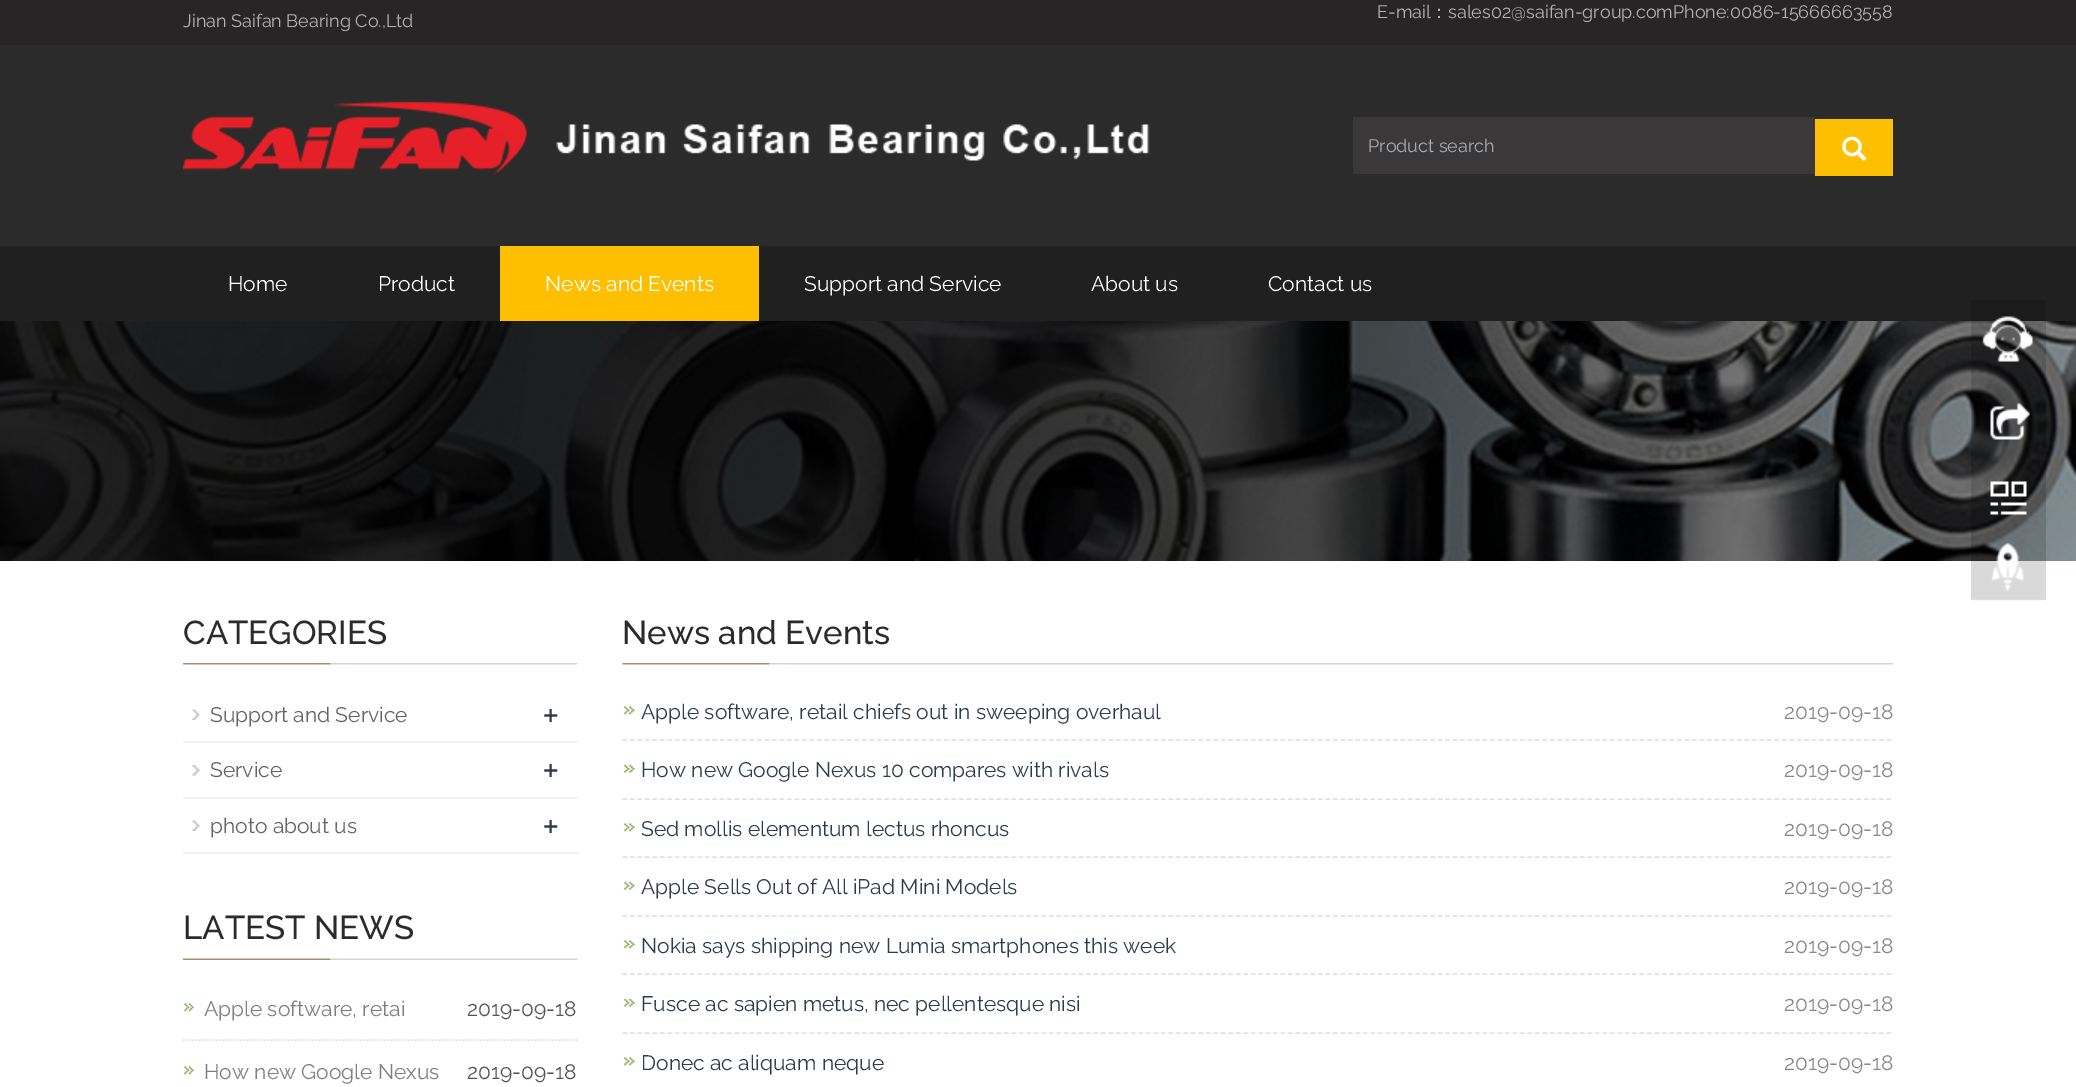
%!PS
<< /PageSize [2076 1087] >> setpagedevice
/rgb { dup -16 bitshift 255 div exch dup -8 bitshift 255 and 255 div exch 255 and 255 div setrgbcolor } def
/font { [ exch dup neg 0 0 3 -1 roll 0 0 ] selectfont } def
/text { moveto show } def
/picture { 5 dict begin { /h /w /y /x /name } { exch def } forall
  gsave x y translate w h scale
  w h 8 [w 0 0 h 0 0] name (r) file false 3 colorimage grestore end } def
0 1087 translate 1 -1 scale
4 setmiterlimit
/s1 { /Raleway-Regular 18 font 16#B3B3B3 rgb } def
/s2 { /WenQuanYiZenHei-Medium 18 font 16#B3B3B3 rgb } def
/s3 { /Raleway-Regular 18 font 16#A3AFB7 rgb } def
/s4 { /Raleway-Regular 21 font 16#FFFFFF rgb } def
/s5 { /Raleway-Medium 33 font 16#2C2B2B rgb } def
/s6 { /Raleway-Regular 21 font 16#656464 rgb } def
/s7 { /OpenSans-SemiBold 27 font 16#303C4B rgb } def
/s8 { /Raleway-Regular 21 font 16#7F7F80 rgb } def
/s9 { /Raleway-Regular 21 font 16#545455 rgb } def
/s10 { /Raleway-Regular 21 font 16#303C4B rgb } def
/s11 { /Raleway-Regular 21 font 16#898989 rgb } def
16#FFFFFF rgb
0 0 2076 1087 rectfill
16#2C2B2B rgb
0 45 2076 201 rectfill
16#272526 rgb
0 0 2076 45 rectfill
s1
(Jinan Saifan Bearing Co.,Ltd) 183 27 text
(E-mail) 1377 18 text
s2
(：) 1430 18 text
s1
(sales02@saifan-group.com) 1448 18 text
(Phone:0086-15666663558) 1673 18 text
(pic1.raw) 183 101 967 75 picture
16#3A3839 rgb
1353 117 462 57 rectfill
s3
(Product search) 1368 152 text
16#FEBF01 rgb
1815 119 78 57 rectfill
(pic2.raw) 1842 136 25 25 picture
16#202020 rgb
0 246 2076 75 rectfill
s4
(Home) 228 291 text
(Product) 378 291 text
16#FEBF01 rgb
500 246 259 75 rectfill
s4
(News and Events) 545 291 text
(Support and Service) 804 291 text
(About us) 1091 291 text
(Contact us) 1268 291 text
(pic4.raw) 0 321 2076 240 picture
(pic3.raw) 1971 300 75 301 picture
(pic5.raw) 183 663 395 2 picture
s5
(CATEGORIES) 183 644 text
(pic6.raw) 192 709 8 11 picture
16#F2F2F2 rgb
183 741 395 2 rectfill
s6
(Support and Service) 210 722 text
s7
(+) 543 725 text
(pic7.raw) 192 765 8 11 picture
16#F2F2F2 rgb
183 797 395 2 rectfill
s6
(Service) 210 777 text
s7
(+) 543 780 text
(pic6.raw) 192 820 8 11 picture
16#F2F2F2 rgb
183 852 395 2 rectfill
s6
(photo about us) 210 833 text
s7
(+) 543 836 text
(pic8.raw) 183 958 395 2 picture
s5
(LATEST NEWS) 183 939 text
(pic9.raw) 184 1003 10 9 picture
16#DDDDDD rgb
1.5 setlinewidth
[1.5 1.5] 0 setdash
183 1040 moveto 577.5 1040 lineto stroke
s8
(Apple software, retai) 204 1016 text
s9
(2019-09-18) 467 1016 text
(pic9.raw) 184 1066 10 9 picture
s8
(How new Google Nexus) 204 1079 text
s9
(2019-09-18) 467 1079 text
(pic10.raw) 622 663 1271 2 picture
s5
(News and Events) 622 644 text
(pic11.raw) 623 706 12 9 picture
16#E3E2E2 rgb
[4.5 2.98] 0 setdash
622.5 740 moveto 1893 740 lineto stroke
s10
(Apple software, retail chiefs out in sweeping overhaul) 641 719 text
s11
(2019-09-18) 1784 719 text
(pic12.raw) 623 764 12 9 picture
16#E3E2E2 rgb
622.5 799 moveto 1893 799 lineto stroke
s10
(How new Google Nexus 10 compares with rivals) 641 777 text
s11
(2019-09-18) 1784 777 text
(pic11.raw) 623 823 12 9 picture
16#E3E2E2 rgb
622.5 857 moveto 1893 857 lineto stroke
s10
(Sed mollis elementum lectus rhoncus) 641 836 text
s11
(2019-09-18) 1784 836 text
(pic12.raw) 623 881 12 9 picture
16#E3E2E2 rgb
622.5 916 moveto 1893 916 lineto stroke
s10
(Apple Sells Out of All iPad Mini Models) 641 894 text
s11
(2019-09-18) 1784 894 text
(pic11.raw) 623 940 12 9 picture
16#E3E2E2 rgb
622.5 974 moveto 1893 974 lineto stroke
s10
(Nokia says shipping new Lumia smartphones this week) 641 953 text
s11
(2019-09-18) 1784 953 text
(pic12.raw) 623 998 12 9 picture
16#E3E2E2 rgb
622.5 1033 moveto 1893 1033 lineto stroke
s10
(Fusce ac sapien metus, nec pellentesque nisi) 641 1011 text
s11
(2019-09-18) 1784 1011 text
(pic11.raw) 623 1057 12 9 picture
s10
(Donec ac aliquam neque) 641 1070 text
s11
(2019-09-18) 1784 1070 text
showpage
